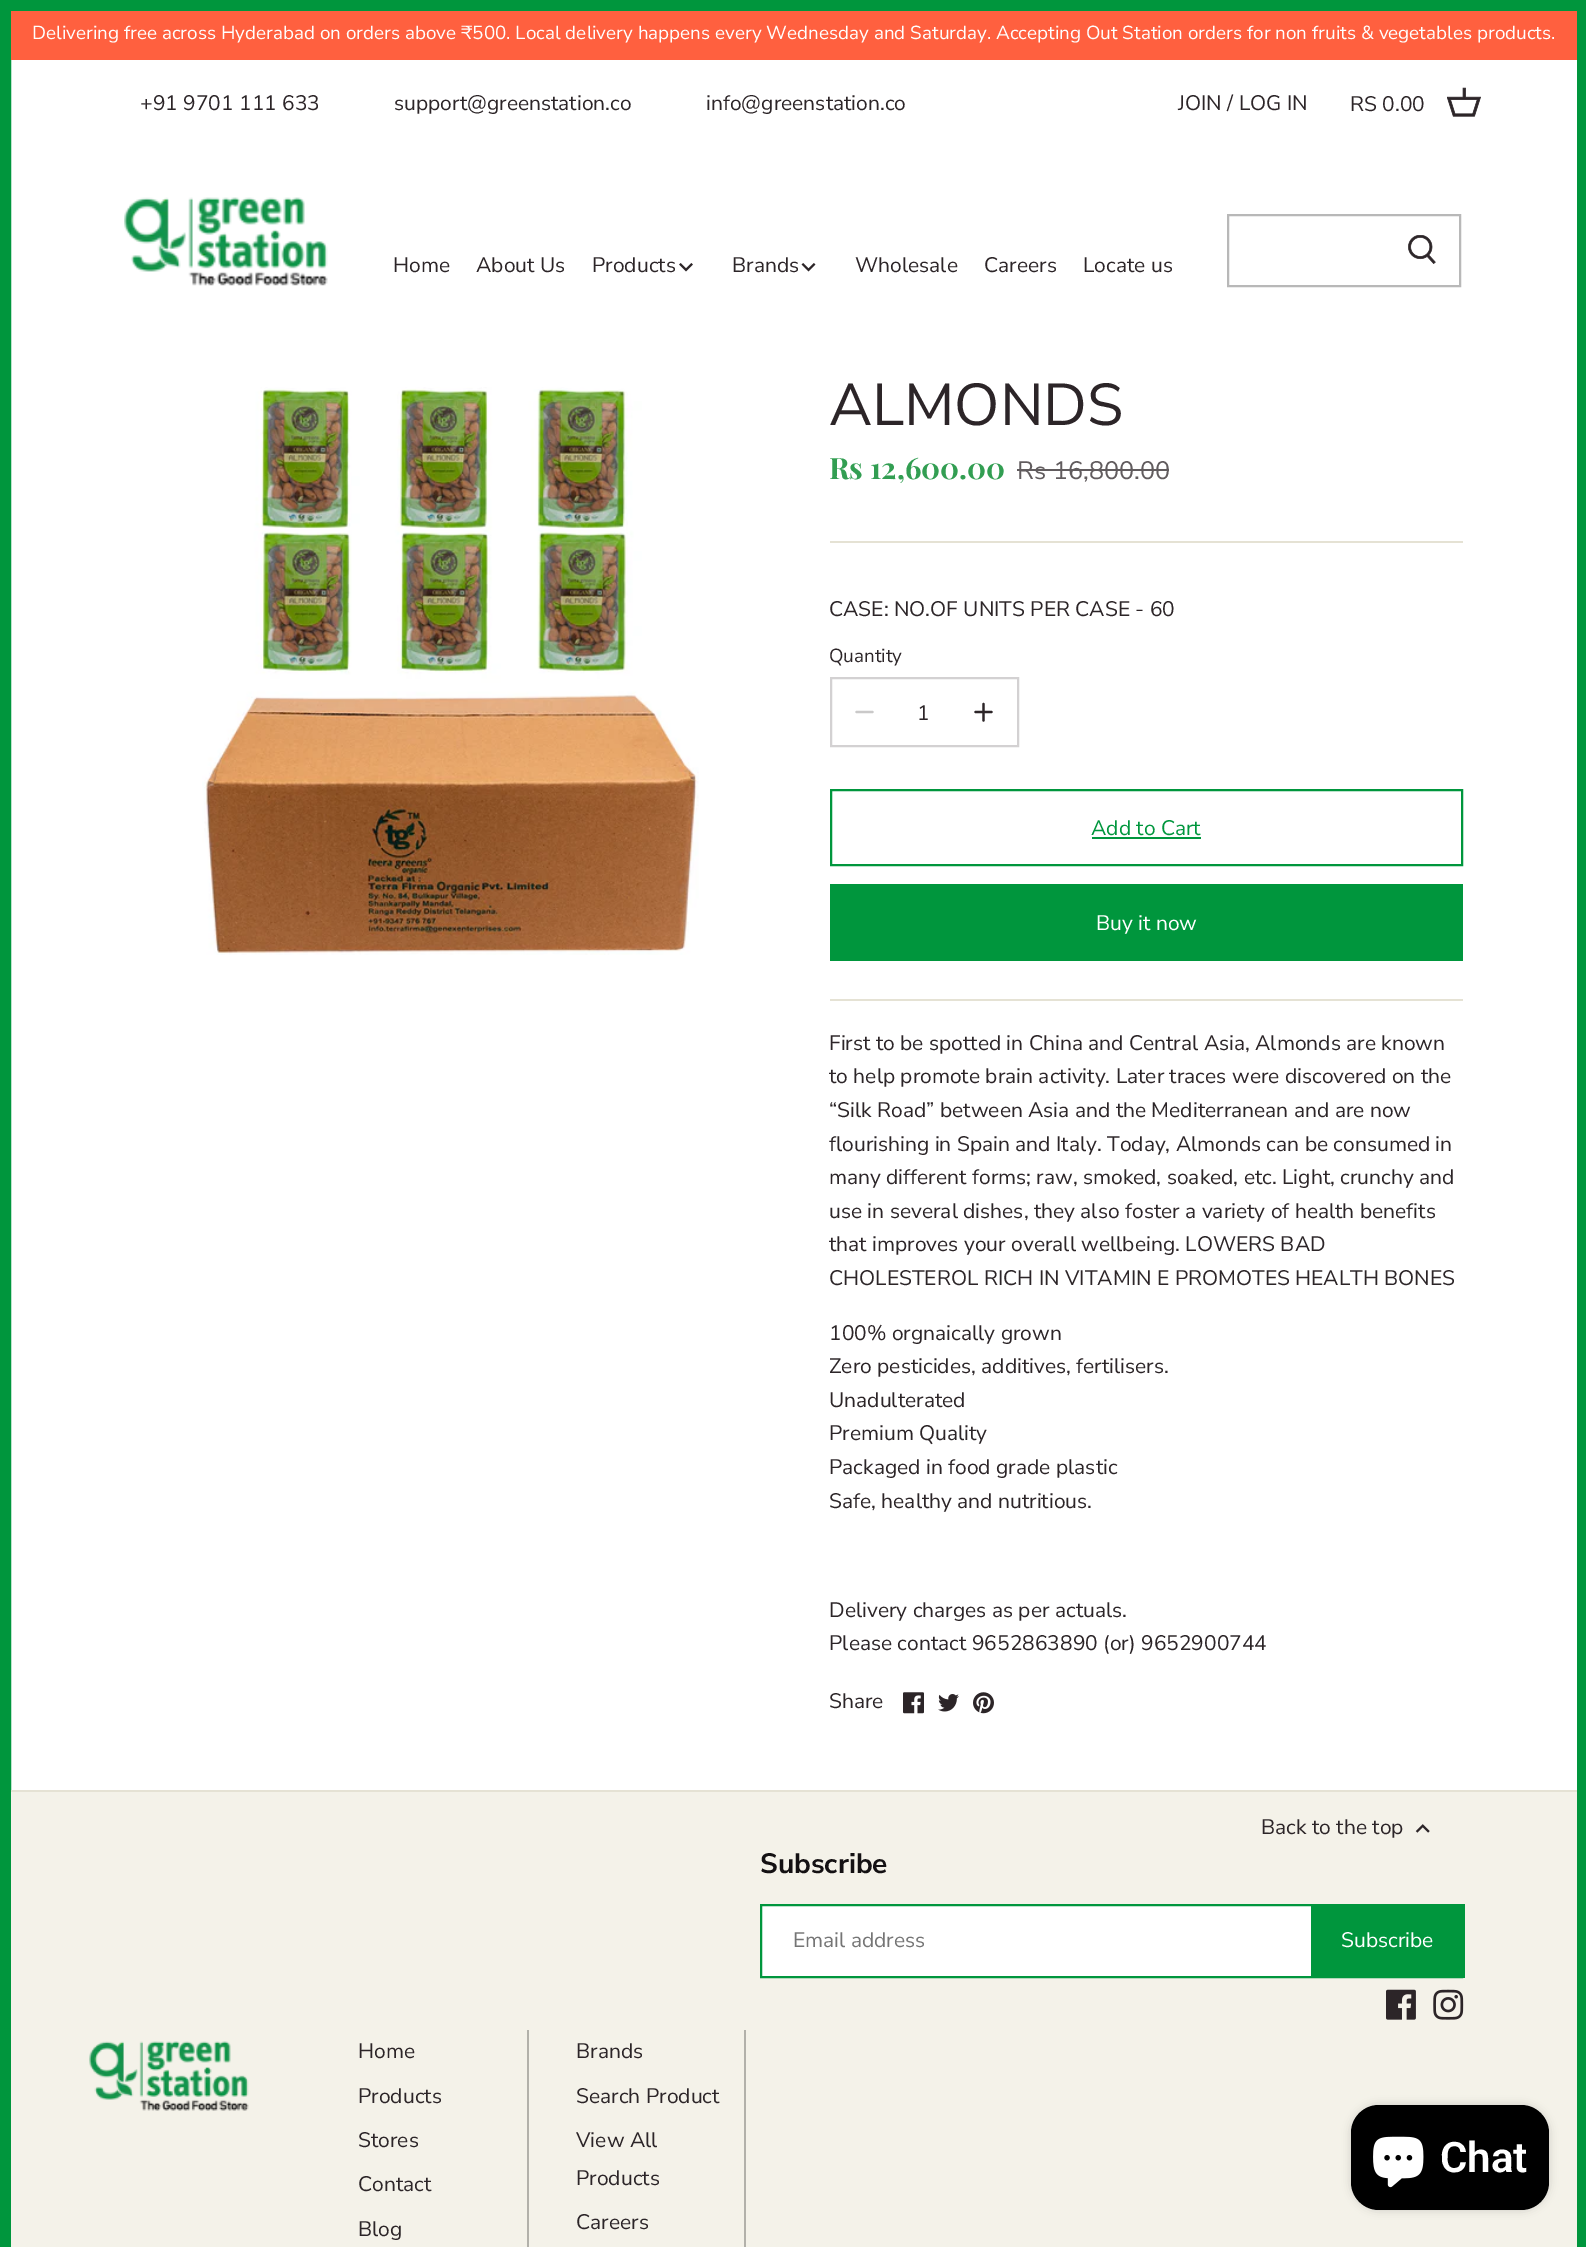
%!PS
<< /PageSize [1586 2247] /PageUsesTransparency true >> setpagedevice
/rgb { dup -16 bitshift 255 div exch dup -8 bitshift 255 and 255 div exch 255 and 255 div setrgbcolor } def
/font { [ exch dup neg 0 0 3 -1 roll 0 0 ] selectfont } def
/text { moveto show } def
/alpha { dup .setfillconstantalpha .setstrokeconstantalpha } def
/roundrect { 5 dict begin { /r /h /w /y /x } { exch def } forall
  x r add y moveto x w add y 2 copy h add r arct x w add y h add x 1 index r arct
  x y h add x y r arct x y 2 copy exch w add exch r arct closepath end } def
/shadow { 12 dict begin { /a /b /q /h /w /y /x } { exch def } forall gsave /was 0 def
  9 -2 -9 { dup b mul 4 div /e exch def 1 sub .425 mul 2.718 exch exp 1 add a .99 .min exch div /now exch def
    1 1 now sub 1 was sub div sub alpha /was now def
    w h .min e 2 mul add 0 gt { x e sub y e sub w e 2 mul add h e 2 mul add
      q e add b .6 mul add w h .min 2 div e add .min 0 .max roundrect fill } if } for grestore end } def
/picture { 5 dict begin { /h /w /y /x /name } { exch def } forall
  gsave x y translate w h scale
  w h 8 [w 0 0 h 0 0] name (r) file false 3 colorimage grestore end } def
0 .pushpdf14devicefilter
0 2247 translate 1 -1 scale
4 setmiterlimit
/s1 { /NunitoSans-Regular 18.9 font 16#FFFFFF rgb } def
/s2 { /NunitoSans-Regular 21 font 16#2C2528 rgb } def
/s3 { /NunitoSans-Regular 59 font 16#2C2528 rgb } def
/s4 { /PlayfairDisplay-Bold 29.5 font 16#329E52 rgb } def
/s5 { /NunitoSans-Regular 25.25 font 16#615C5E rgb } def
/s6 { /NunitoSans-Regular 18.9 font 16#2C2528 rgb } def
/s7 { /NunitoSans-Regular 21 font 16#00963D rgb } def
/s8 { /NunitoSans-Regular 21 font 16#FFFFFF rgb } def
/s9 { /NunitoSans-Bold 28 font 16#141113 rgb } def
/s10 { /NunitoSans-Regular 21 font 16#757575 rgb } def
/s11 { /Roboto-SemiBold 42 font 16#FFFFFF rgb } def
16#FFFFFF rgb
0 0 1586 2247 rectfill
16#00963D rgb
11 setlinewidth
5.5 5.5 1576 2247 rectstroke
16#FFFFFF rgb
1576 60 1 1730 rectfill
16#FF603F rgb
11 11 1566 49 rectfill
s1
(Delivering free across Hyderabad on orders above ₹500. Local delivery happens every Wednesday and Saturday. Accepting Out Station orders for non fruits & vegetables products.) 32 39 text
s2
(+91 9701 111 633) 140 110 text
(support@greenstation.co) 394 110 text
(info@greenstation.co) 706 110 text
(JOIN / LOG IN) 1178 110 text
16#B8B8B8 rgb
2 setlinewidth
1228 215 232 71 rectstroke
(pic1.raw) 1408 235 28 29 picture
s2
(RS 0.00) 1350 111 text
(pic2.raw) 1447 87 34 30 picture
(pic3.raw) 124 197 204 89 picture
(Home) 393 272 text
(About Us) 476 272 text
(Products) 592 272 text
(pic4.raw) 679 263 14 9 picture
(Brands) 732 272 text
(pic5.raw) 801 263 15 9 picture
(Wholesale) 855 272 text
(Careers) 984 272 text
(Locate us) 1083 272 text
(pic6.raw) 202 387 497 568 picture
16#E5E2D4 rgb
830 541 633 2 rectfill
s3
(ALMONDS) 829 425 text
s4
(Rs 12,600.00) 829 479 text
s5
(Rs 16,800.00) 1017 479 text
1017 469 152 2 rectfill
16#E5E2D4 rgb
830 999 633 2 rectfill
s2
(CASE: NO.OF UNITS PER CASE - 60) 829 616 text
s6
(Quantity) 829 662 text
16#D3D1D2 rgb
831 678 187 68 rectstroke
16#CAC9C9 rgb
2.3 setlinewidth
1 setlinecap
1 setlinejoin
856.5 712 moveto 872.5 712 lineto stroke
s2
(1) 917 720 text
983.5 704 moveto 983.5 720.5 lineto 975.5 712 moveto 991.5 712 lineto stroke
16#00963D rgb
2 setlinewidth
0 setlinecap
0 setlinejoin
831 790 631 75 rectstroke
(Add to Cart) 1091 835 text
1092 837 109 2 rectfill
830 884 633 77 rectfill
s8
(Buy it now) 1096 930 text
s2
(First to be spotted in China and Central Asia, Almonds are known) 829 1050 text
(to help promote brain activity. Later traces were discovered on the) 829 1083 text
(“Silk Road” between Asia and the Mediterranean and are now) 829 1117 text
(flourishing in Spain and Italy. Today, Almonds can be consumed in) 829 1151 text
(many different forms; raw, smoked, soaked, etc. Light, crunchy and) 829 1184 text
(use in several dishes, they also foster a variety of health benefits) 829 1218 text
(that improves your overall wellbeing. LOWERS BAD) 829 1251 text
(CHOLESTEROL RICH IN VITAMIN E PROMOTES HEALTH BONES) 829 1285 text
(100% orgnaically grown) 829 1340 text
(Zero pesticides, additives, fertilisers.) 829 1373 text
(Unadulterated) 829 1407 text
(Premium Quality) 829 1440 text
(Packaged in food grade plastic) 829 1474 text
(Safe, healthy and nutritious.) 829 1508 text
(Delivery charges as per actuals.) 829 1617 text
(Please contact 9652863890 \(or\) 9652900744) 829 1650 text
(Share) 829 1708 text
(pic7.raw) 903 1692 21 22 picture
(pic8.raw) 938 1694 21 18 picture
(pic9.raw) 973 1692 21 22 picture
16#F4F2E9 rgb
11 1792 1566 455 rectfill
16#E5E2D4 rgb
11 1790 1566 2 rectfill
s2
(Back to the top) 1261 1834 text
(pic10.raw) 1415 1824 15 9 picture
s9
(Subscribe) 760 1873 text
16#FFFFFF rgb
762 1906 549 70 rectfill
16#00963D rgb
761 1905 701 72 rectstroke
s10
(Email address) 793 1947 text
16#00963D rgb
1311 1904 154 74 rectfill
s8
(Subscribe) 1341 1947 text
(pic11.raw) 1386 1989 30 31 picture
(pic12.raw) 1433 1989 31 31 picture
(pic13.raw) 89 2041 160 70 picture
s2
(Home) 358 2058 text
(Products) 358 2103 text
(Stores) 358 2147 text
(Contact) 358 2191 text
(Blog) 358 2236 text
16#B2B1AA rgb
527 2030 2 217 rectfill
s2
(Brands) 576 2058 text
(Search Product) 576 2103 text
(View All) 576 2147 text
(Products) 576 2185 text
(Careers) 576 2229 text
16#B2B1AA rgb
744 2030 2 217 rectfill
16#000000 rgb
1351 2105 198 105 28 4.5 0.15 shadow
1351 2105 198 105 28 roundrect fill
(pic14.raw) 1373 2136 51 52 picture
s11
(Chat) 1440 2172 text
.poppdf14devicefilter showpage
